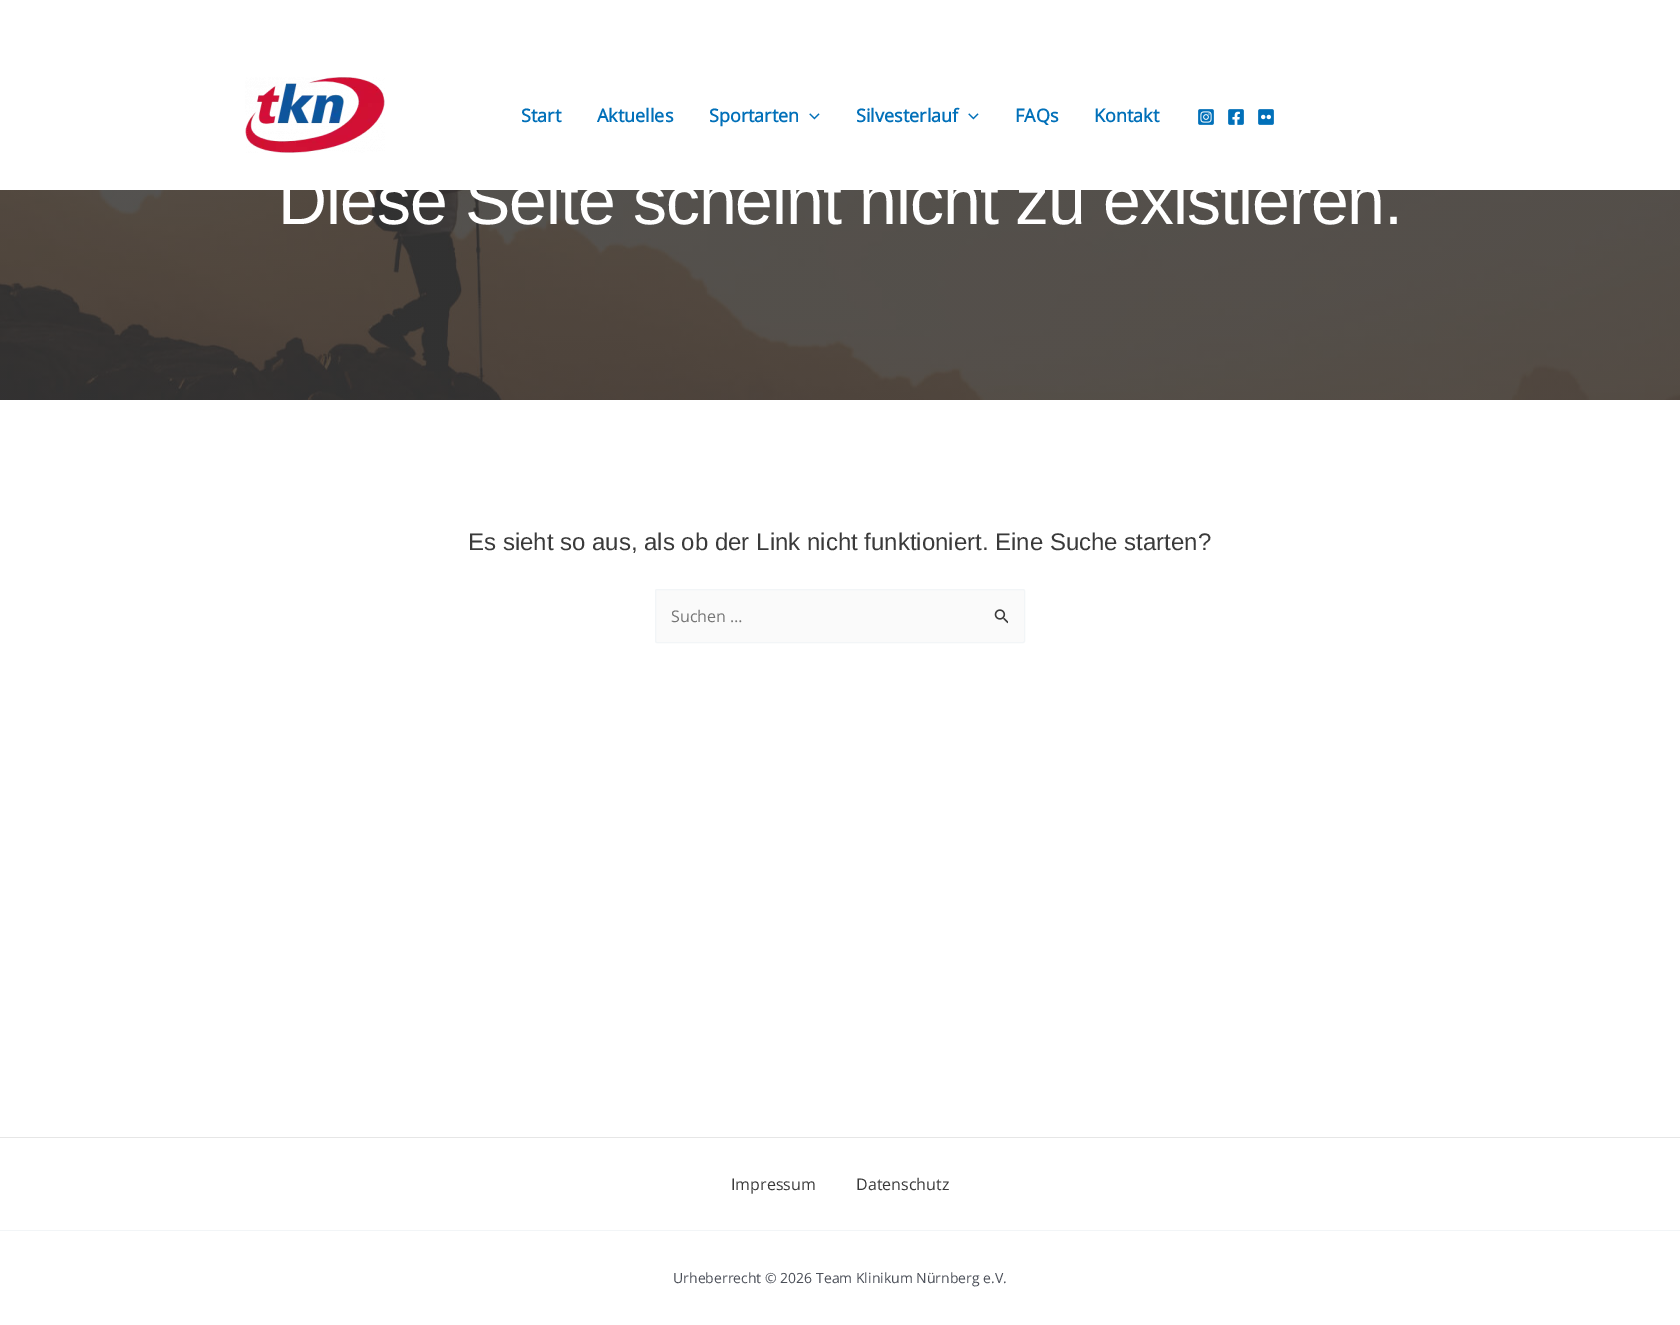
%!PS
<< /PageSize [1680 1325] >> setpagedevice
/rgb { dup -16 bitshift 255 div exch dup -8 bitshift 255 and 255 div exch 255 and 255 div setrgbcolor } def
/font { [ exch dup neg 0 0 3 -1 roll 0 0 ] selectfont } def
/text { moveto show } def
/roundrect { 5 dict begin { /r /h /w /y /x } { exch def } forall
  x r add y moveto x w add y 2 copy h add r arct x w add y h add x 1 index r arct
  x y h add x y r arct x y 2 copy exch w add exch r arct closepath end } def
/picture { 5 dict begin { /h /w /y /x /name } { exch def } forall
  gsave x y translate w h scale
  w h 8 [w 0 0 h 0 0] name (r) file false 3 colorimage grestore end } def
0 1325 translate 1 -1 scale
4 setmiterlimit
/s1 { /OpenSans-Bold 18 font 16#0170B9 rgb } def
/s2 { /LiberationSans-Regular 24 font 16#3A3A3A rgb } def
/s3 { /OpenSans-Regular 16 font 16#757575 rgb } def
/s4 { /OpenSans-Regular 16 font 16#3A3A3A rgb } def
/s5 { /OpenSans-Regular 14 font 16#4B4F58 rgb } def
16#FFFFFF rgb
0 0 1680 1325 rectfill
(pic1.raw) 245 77 140 76 picture
s1
(Start) 521 122 text
(Aktuelles) 597 122 text
(Sportarten) 709 122 text
(pic2.raw) 809 113 11 7 picture
(Silvesterlauf) 856 122 text
(pic2.raw) 968 113 11 7 picture
(FAQs) 1015 122 text
(Kontakt) 1094 122 text
(pic3.raw) 1198 109 16 16 picture
(pic4.raw) 1228 109 16 16 picture
(pic5.raw) 1258 109 16 16 picture
(pic6.raw) 0 190 1680 210 picture
/LiberationSans-Regular 68 font
16#FFFFFF rgb
278 224 moveto -1 0 (Diese Seite scheint nicht zu existieren.) ashow
s2
(Es sieht so aus, als ob der Link nicht funktioniert. Eine Suche starten?) 468 550 text
16#FAFAFA rgb
655.5 589.5 369 53 1.5 roundrect gsave fill grestore
16#F2F5F7 rgb
stroke
s3
(Suchen …) 671 622 text
(pic7.raw) 994 609 14 15 picture
16#E6E6E6 rgb
0 1137 1680 1 rectfill
s4
(Impressum) 731 1190 text
(Datenschutz) 856 1190 text
16#F2F5F7 rgb
0 1230 1680 1 rectfill
s5
(Urheberrecht © 2026 Team Klinikum Nürnberg e.V.) 673 1283 text
showpage
